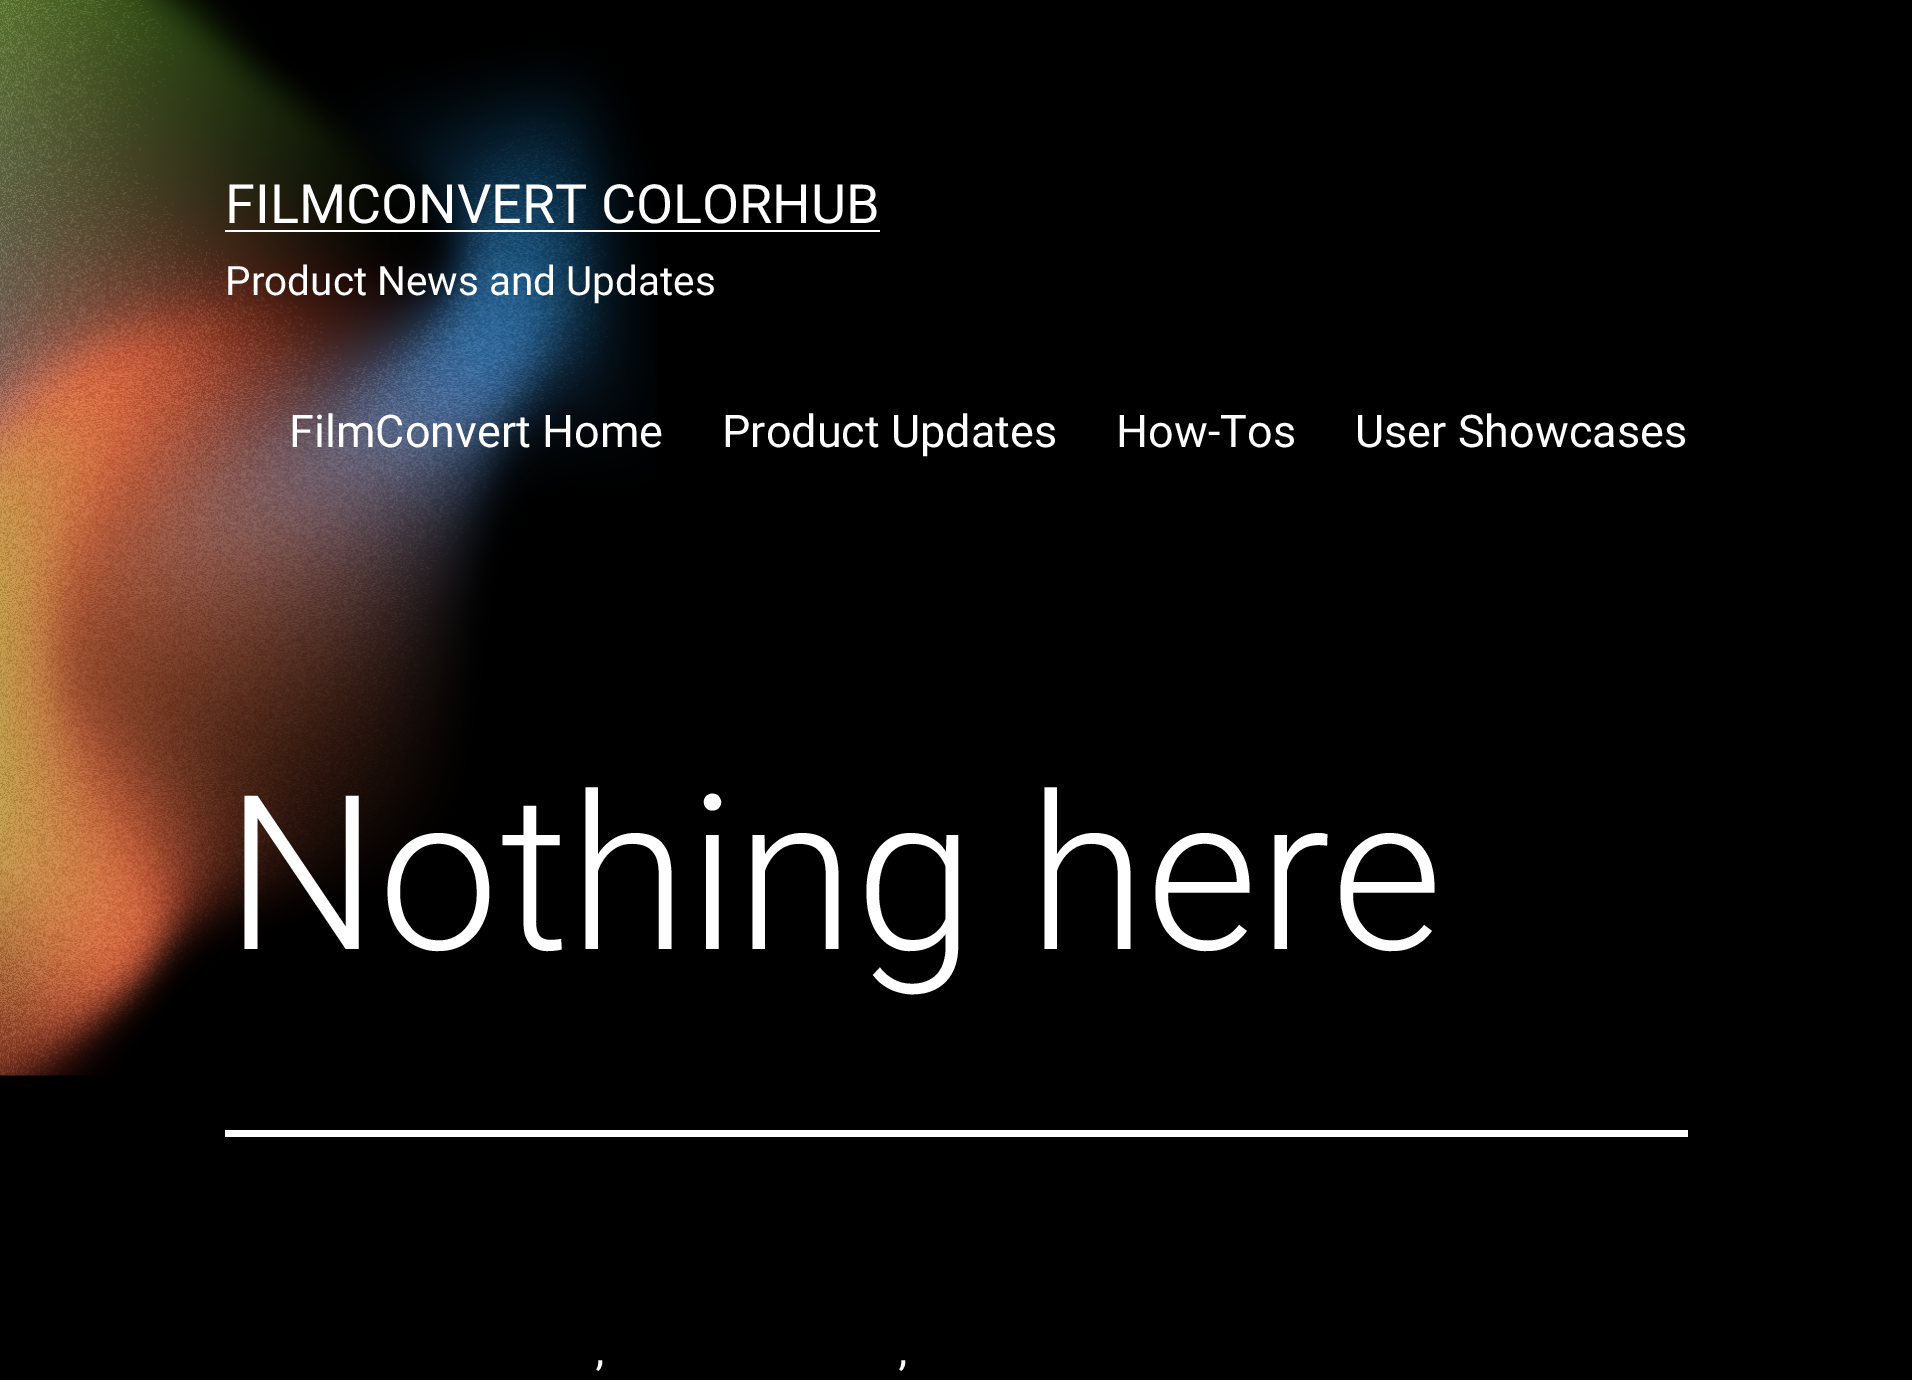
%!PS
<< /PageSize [1912 1380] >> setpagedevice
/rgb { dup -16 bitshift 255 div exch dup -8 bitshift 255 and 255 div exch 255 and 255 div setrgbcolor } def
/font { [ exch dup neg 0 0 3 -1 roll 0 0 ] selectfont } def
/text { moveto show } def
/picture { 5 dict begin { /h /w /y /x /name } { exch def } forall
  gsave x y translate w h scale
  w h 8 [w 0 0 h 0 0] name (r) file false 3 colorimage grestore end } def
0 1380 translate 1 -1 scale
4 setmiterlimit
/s1 { /Roboto-Regular 54 font 16#FFFFFF rgb } def
/s2 { /Roboto-Regular 40.5 font 16#FFFFFF rgb } def
/s3 { /Roboto-Regular 45 font 16#FFFFFF rgb } def
/s4 { /Roboto-Light 216 font 16#FFFFFF rgb } def
16#000000 rgb
0 0 1912 1380 rectfill
(pic1.raw) 0 0 657 1076 picture
s1
(FILMCONVERT COLORHUB) 225 223 text
225 230 655 2 rectfill
s2
(Product News and Updates) 225 295 text
s3
(FilmConvert Home) 289 447 text
(Product Updates) 722 447 text
(How-Tos) 1116 447 text
(User Showcases) 1355 447 text
225 1130 1463 7 rectfill
s4
(Nothing here) 225 949 text
s3
(’) 595 1394 text
(’) 898 1394 text
showpage
